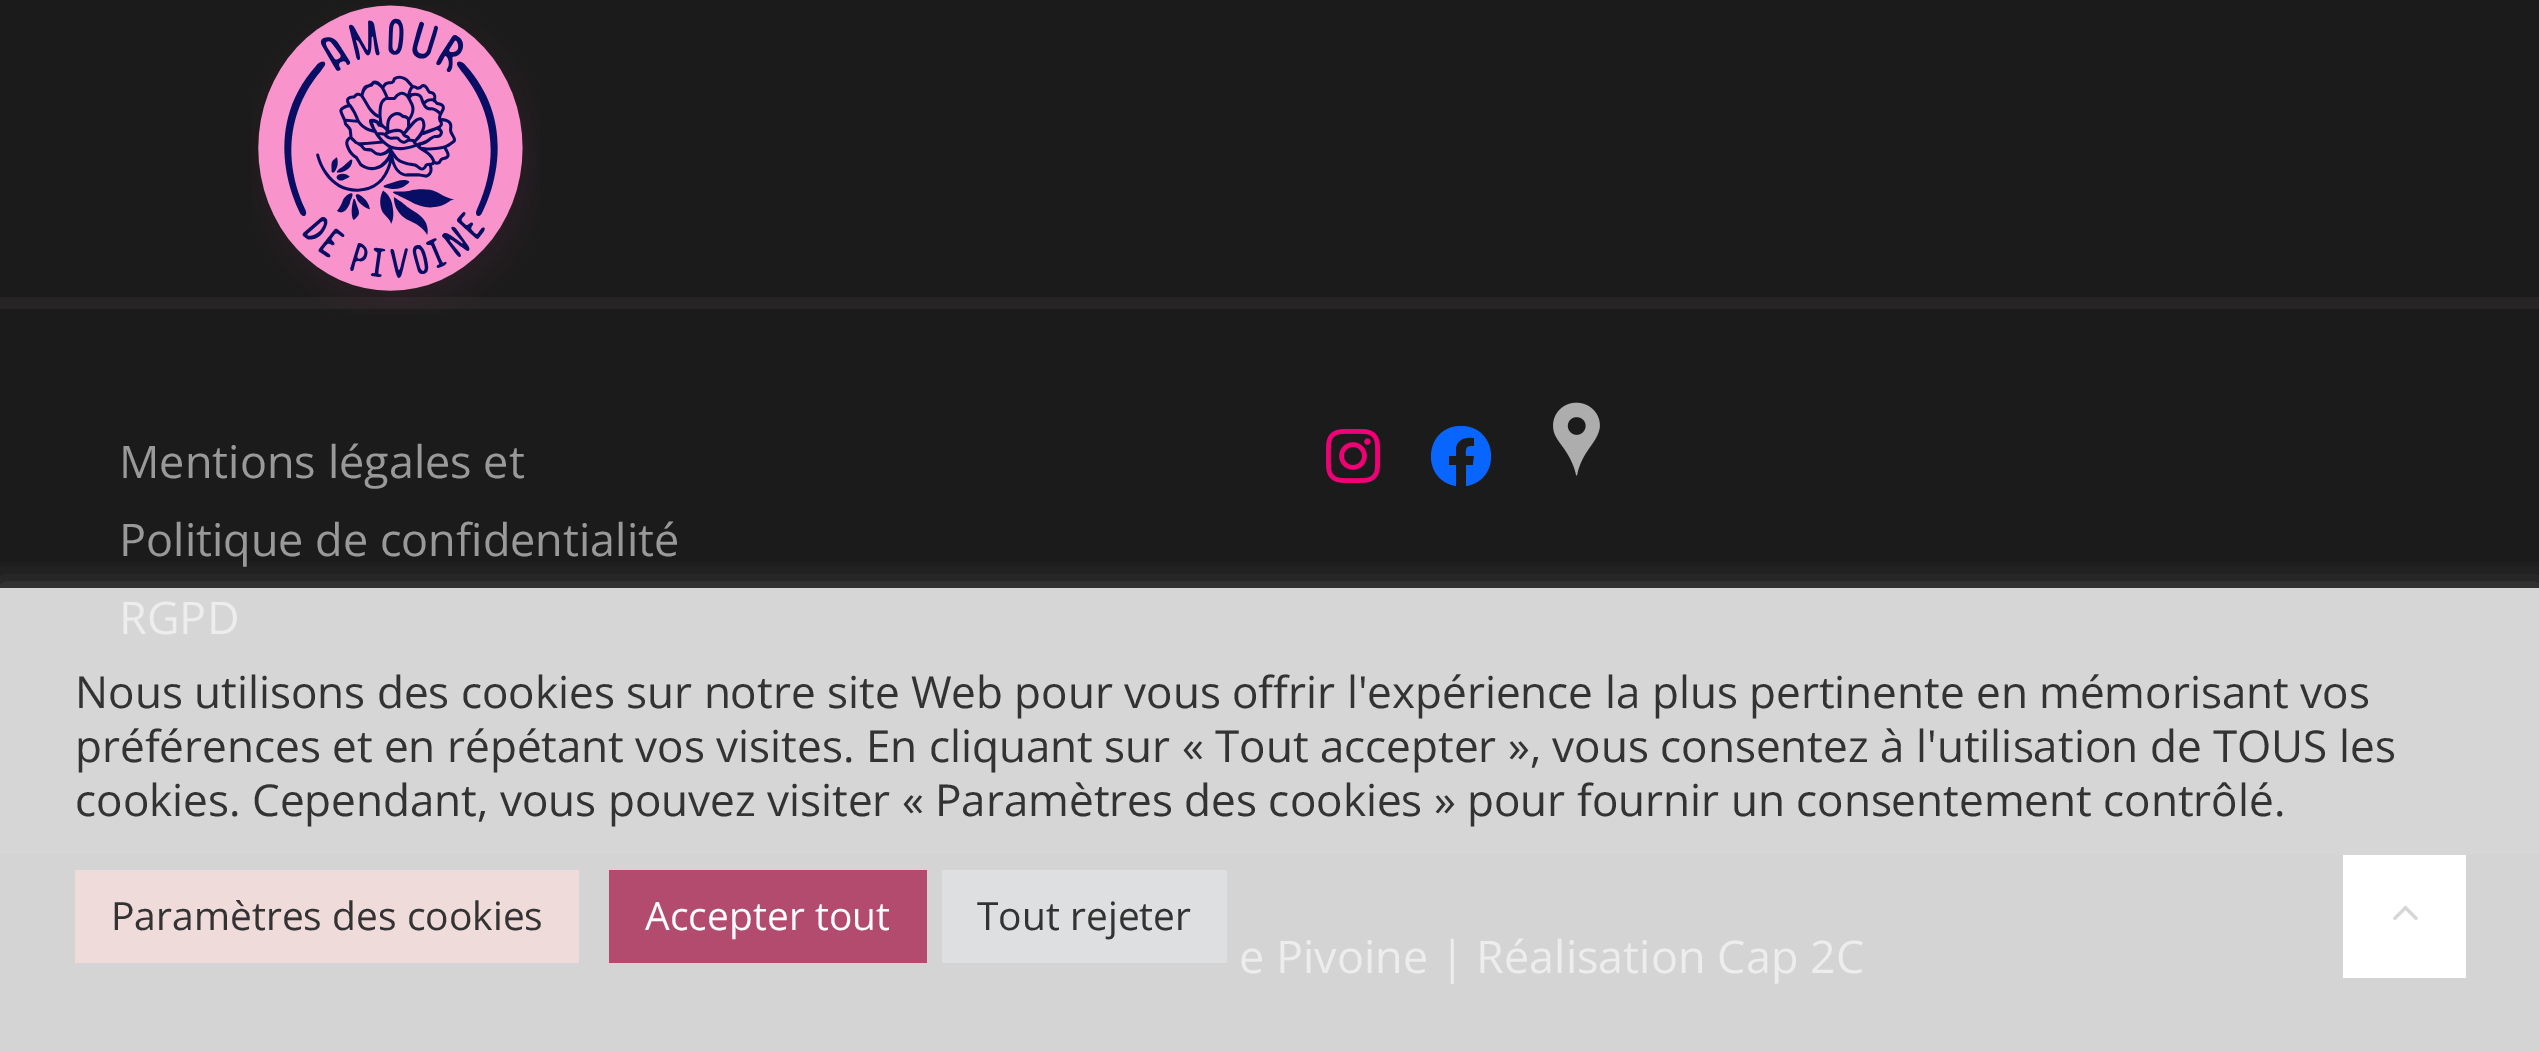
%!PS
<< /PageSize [2539 1051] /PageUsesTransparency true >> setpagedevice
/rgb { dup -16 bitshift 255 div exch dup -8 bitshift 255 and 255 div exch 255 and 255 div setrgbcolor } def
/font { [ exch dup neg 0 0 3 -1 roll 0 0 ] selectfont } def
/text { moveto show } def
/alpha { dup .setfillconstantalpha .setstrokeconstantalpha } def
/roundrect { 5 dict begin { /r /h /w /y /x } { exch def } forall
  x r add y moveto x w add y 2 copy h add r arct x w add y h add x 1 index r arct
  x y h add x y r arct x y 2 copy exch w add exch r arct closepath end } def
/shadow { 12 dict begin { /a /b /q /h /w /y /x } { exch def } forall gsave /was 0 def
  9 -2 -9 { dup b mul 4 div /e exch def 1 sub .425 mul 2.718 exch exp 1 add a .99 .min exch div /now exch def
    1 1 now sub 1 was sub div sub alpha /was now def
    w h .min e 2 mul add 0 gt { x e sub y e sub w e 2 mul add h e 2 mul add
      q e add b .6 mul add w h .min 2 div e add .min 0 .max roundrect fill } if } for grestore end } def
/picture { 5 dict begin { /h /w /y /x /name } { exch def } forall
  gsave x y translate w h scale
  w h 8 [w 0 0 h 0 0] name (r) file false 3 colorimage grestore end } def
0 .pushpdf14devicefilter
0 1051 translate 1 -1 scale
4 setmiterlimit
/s1 { /OpenSans-Regular 45 font 16#999999 rgb } def
/s2 { /OpenSans-Regular 45 font 16#EDEDED rgb } def
/s3 { /OpenSans-Regular 44 font 16#333333 rgb } def
/s4 { /OpenSans-Regular 39 font 16#333333 rgb } def
/s5 { /OpenSans-Regular 39 font 16#FFFFFF rgb } def
16#1B1B1B rgb
0 0 2539 1051 rectfill
16#262424 rgb
0 297 2539 12 rectfill
(pic1.raw) 252 5 288 309 picture
16#D6D6D6 rgb
0 588 2539 267 rectfill
s1
(Mentions légales et) 119 478 text
(Politique de confidentialité) 119 556 text
s2
(RGPD) 119 634 text
(pic2.raw) 1326 429 54 54 picture
16#0866FF rgb
1461 426 moveto 1424 426 1420 480 1456 486 curveto 1456 465 lineto 1449 465 lineto 1449 456 lineto 1456 456 lineto 1456 447 lineto 1458 438 1467 437 1474 438 curveto 1474 446 lineto 1465 446 1466 448 1466 456 curveto 1474 456 lineto 1473 465 lineto 1466 465 lineto 1466 486 lineto 1502 480 1498 426 1461 426 curveto closepath fill
(pic3.raw) 1553 402 47 74 picture
16#D4D4D4 rgb
0 855 2539 196 rectfill
s2
(e Pivoine | Réalisation Cap 2C) 1239 973 text
16#FFFFFF rgb
2343 855 123 123 rectfill
(pic4.raw) 2393 905 25 16 picture
gsave
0 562 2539 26 rectclip
16#ACABAB rgb
0 585 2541 465 0 15 0.3 shadow
grestore
s3
(Nous utilisons des cookies sur notre site Web pour vous offrir l'expérience la plus pertinente en mémorisant vos) 75 708 text
(préférences et en répétant vos visites. En cliquant sur « Tout accepter », vous consentez à l'utilisation de TOUS les) 75 762 text
(cookies. Cependant, vous pouvez visiter « Paramètres des cookies » pour fournir un consentement contrôlé.) 75 816 text
16#EFDBDA rgb
75 870 504 93 rectfill
s4
(Paramètres des cookies) 111 930 text
16#B34B6F rgb
609 870 318 93 rectfill
s5
(Accepter tout) 645 930 text
16#DEDFE0 rgb
942 870 285 93 rectfill
s4
(Tout rejeter) 977 930 text
.poppdf14devicefilter showpage
